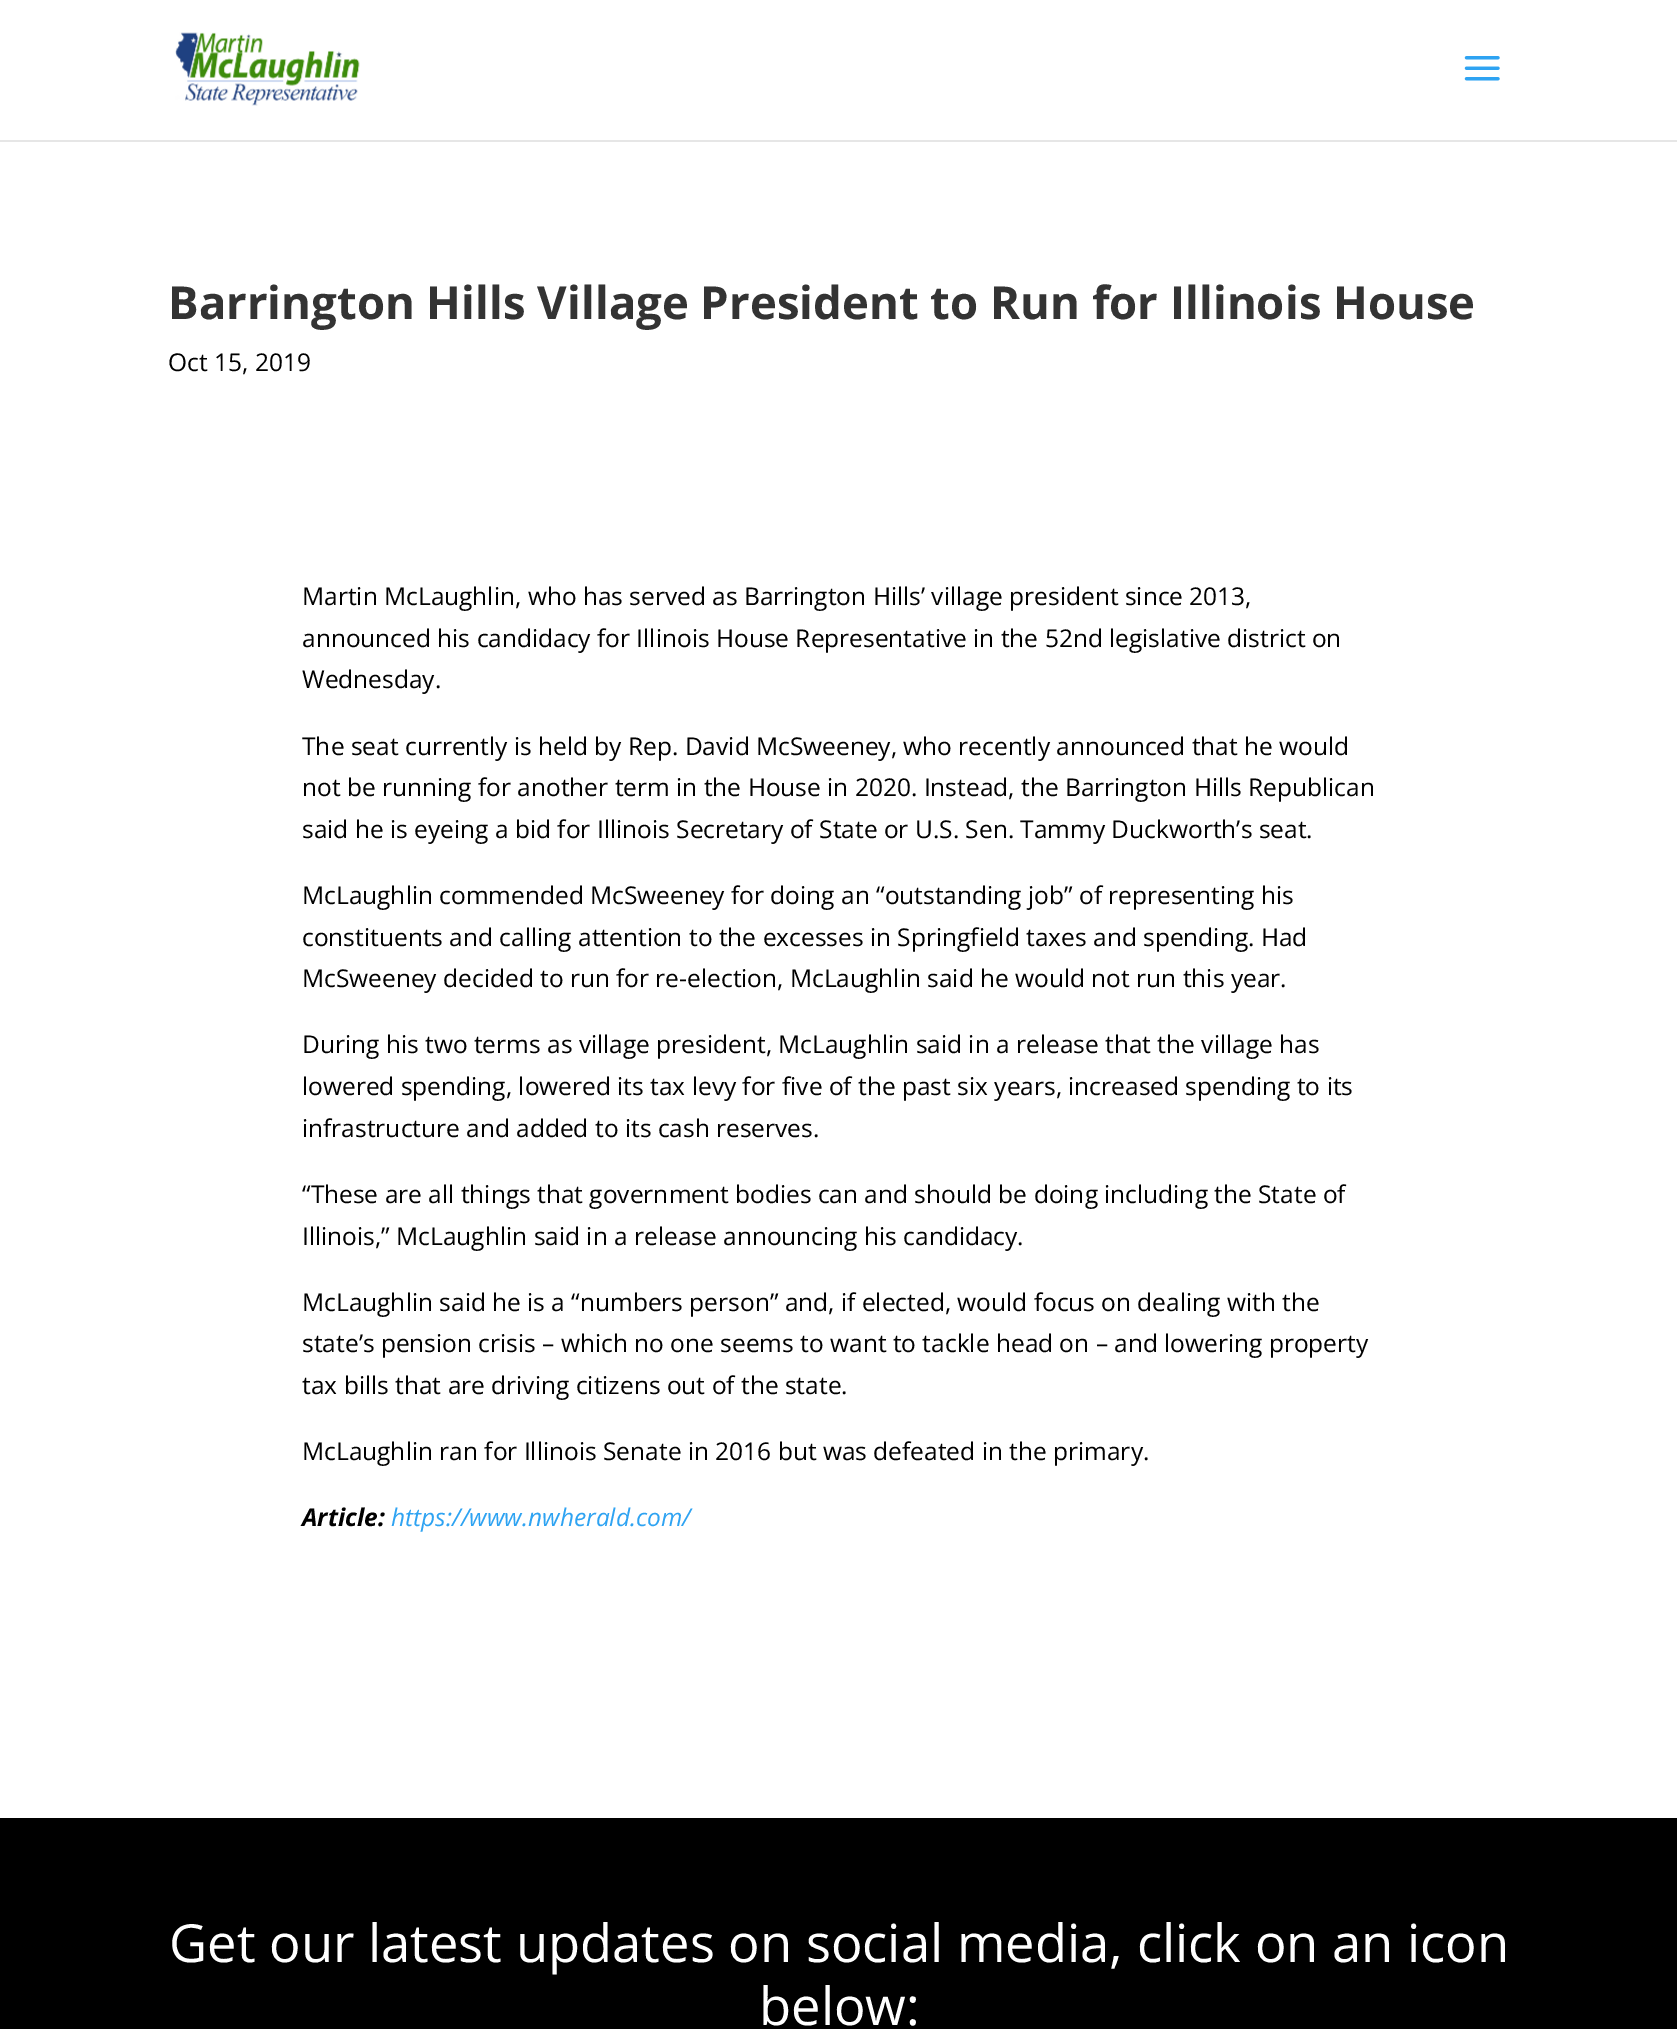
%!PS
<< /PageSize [1677 2029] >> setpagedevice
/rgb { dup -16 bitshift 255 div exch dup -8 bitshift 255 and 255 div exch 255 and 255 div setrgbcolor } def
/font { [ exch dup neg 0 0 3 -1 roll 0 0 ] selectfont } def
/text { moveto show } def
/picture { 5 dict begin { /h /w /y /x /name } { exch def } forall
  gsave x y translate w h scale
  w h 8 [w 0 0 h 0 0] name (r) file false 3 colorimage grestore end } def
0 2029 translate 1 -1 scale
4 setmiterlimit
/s1 { /OpenSans-Bold 45.5 font 16#333333 rgb } def
/s2 { /OpenSans-Regular 24.5 font 16#000000 rgb } def
/s3 { /OpenSans-BoldItalic 24.5 font 16#000000 rgb } def
/s4 { /OpenSans-Italic 24.5 font 16#2EA3F2 rgb } def
/s5 { /OpenSans-Regular 52.5 font 16#FFFFFF rgb } def
16#FFFFFF rgb
0 0 1677 2029 rectfill
16#E6E6E6 rgb
0 140 1677 2 rectfill
(pic1.raw) 175 32 185 74 picture
(pic2.raw) 1464 56 36 25 picture
s1
(Barrington Hills Village President to Run for Illinois House) 168 319 text
s2
(Oct 15, 2019) 168 371 text
(Martin McLaughlin, who has served as Barrington Hills’ village president since 2013,) 302 605 text
(announced his candidacy for Illinois House Representative in the 52nd legislative district on) 302 647 text
(Wednesday.) 302 688 text
(The seat currently is held by Rep. David McSweeney, who recently announced that he would) 302 755 text
(not be running for another term in the House in 2020. Instead, the Barrington Hills Republican) 302 796 text
(said he is eyeing a bid for Illinois Secretary of State or U.S. Sen. Tammy Duckworth’s seat.) 302 838 text
(McLaughlin commended McSweeney for doing an “outstanding job” of representing his) 302 904 text
(constituents and calling attention to the excesses in Springfield taxes and spending. Had) 302 946 text
(McSweeney decided to run for re-election, McLaughlin said he would not run this year.) 302 987 text
(During his two terms as village president, McLaughlin said in a release that the village has) 302 1053 text
(lowered spending, lowered its tax levy for five of the past six years, increased spending to its) 302 1095 text
(infrastructure and added to its cash reserves.) 302 1137 text
(“These are all things that government bodies can and should be doing including the State of) 302 1203 text
(Illinois,” McLaughlin said in a release announcing his candidacy.) 302 1245 text
(McLaughlin said he is a “numbers person” and, if elected, would focus on dealing with the) 302 1311 text
(state’s pension crisis – which no one seems to want to tackle head on – and lowering property) 302 1352 text
(tax bills that are driving citizens out of the state.) 302 1394 text
(McLaughlin ran for Illinois Senate in 2016 but was defeated in the primary.) 302 1460 text
s3
(Article:) 302 1526 text
s4
(https://www.nwherald.com/) 391 1526 text
16#000000 rgb
0 1818 1677 211 rectfill
s5
(Get our latest updates on social media, click on an icon) 169 1962 text
(below:) 759 2025 text
showpage
